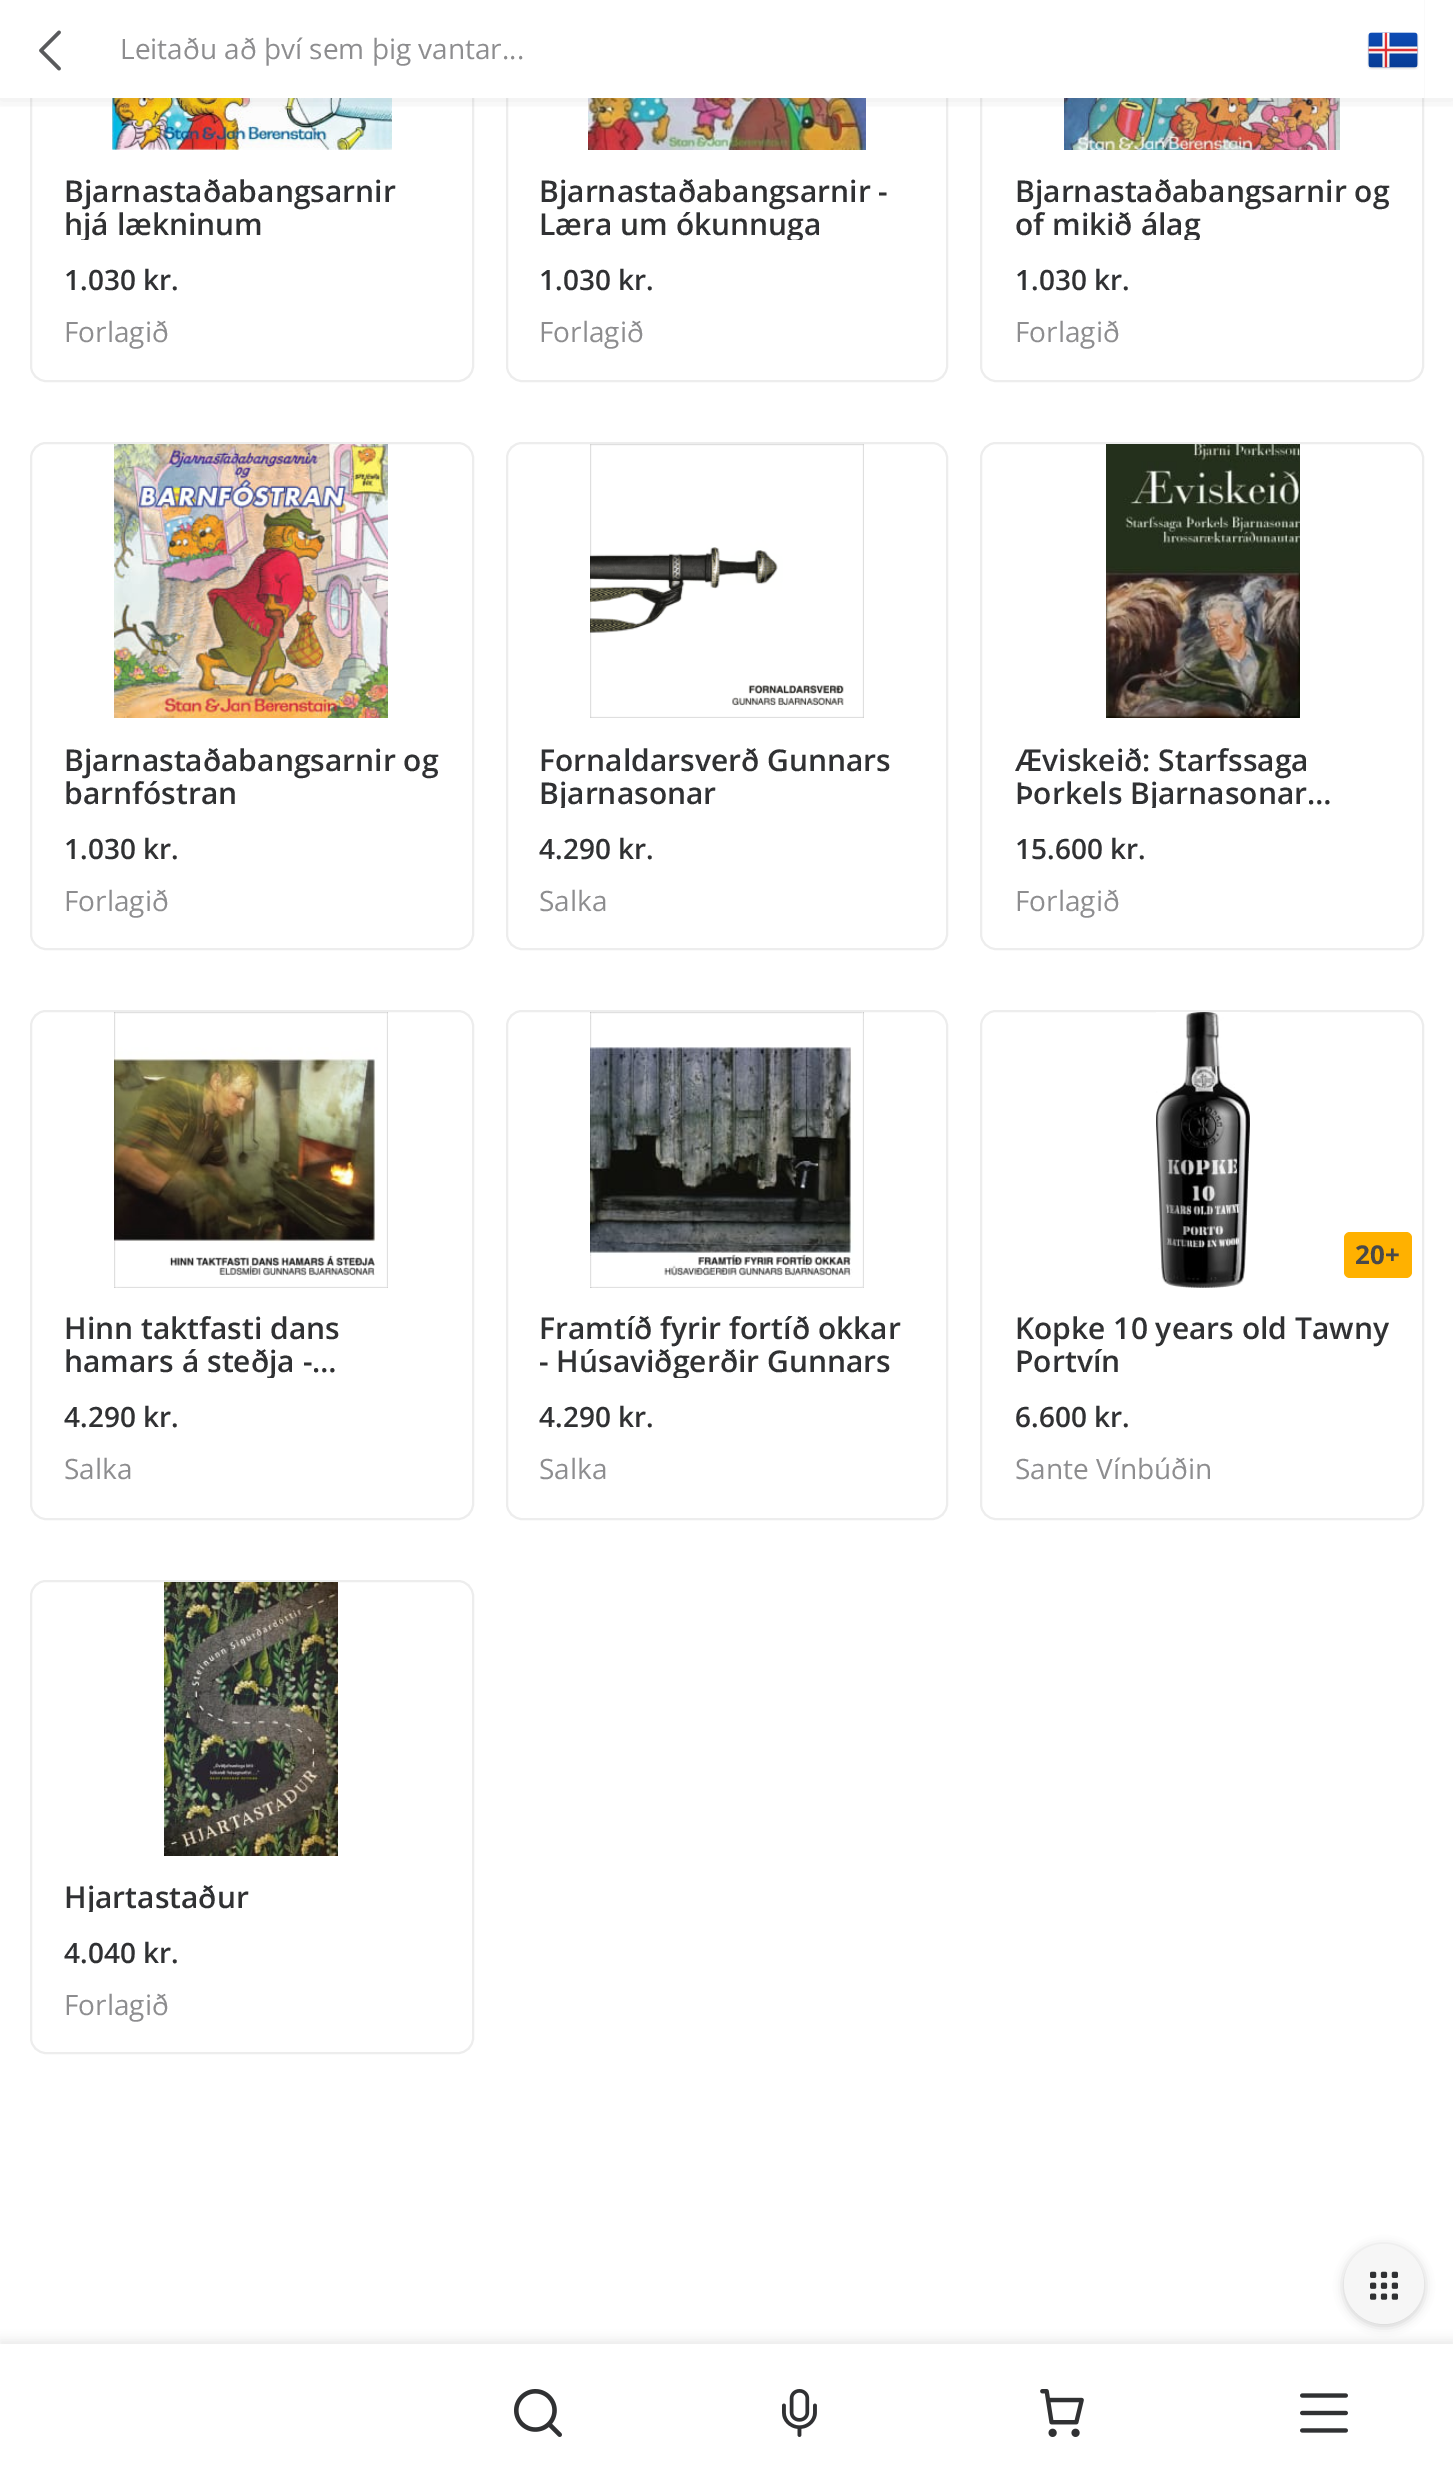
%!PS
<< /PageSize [1453 2484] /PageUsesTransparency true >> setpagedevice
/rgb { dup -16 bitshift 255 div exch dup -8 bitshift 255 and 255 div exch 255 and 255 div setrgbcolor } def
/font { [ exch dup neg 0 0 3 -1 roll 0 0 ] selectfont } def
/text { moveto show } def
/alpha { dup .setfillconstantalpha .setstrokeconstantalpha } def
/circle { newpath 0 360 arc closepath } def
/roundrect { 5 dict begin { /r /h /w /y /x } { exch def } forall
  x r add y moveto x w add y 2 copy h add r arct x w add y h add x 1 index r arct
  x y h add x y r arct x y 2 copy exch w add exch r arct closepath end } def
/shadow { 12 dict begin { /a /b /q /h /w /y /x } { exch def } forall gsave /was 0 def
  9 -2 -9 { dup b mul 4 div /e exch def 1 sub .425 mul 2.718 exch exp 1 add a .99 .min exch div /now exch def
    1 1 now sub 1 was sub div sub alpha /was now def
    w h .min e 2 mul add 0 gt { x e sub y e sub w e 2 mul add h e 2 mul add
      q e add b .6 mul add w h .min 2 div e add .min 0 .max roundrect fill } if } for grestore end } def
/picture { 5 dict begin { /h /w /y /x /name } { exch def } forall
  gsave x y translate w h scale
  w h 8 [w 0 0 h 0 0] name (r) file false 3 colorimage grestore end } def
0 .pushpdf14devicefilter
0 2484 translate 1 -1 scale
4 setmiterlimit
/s1 { /OpenSans-Regular 28 font 16#8D8D8F rgb } def
/s2 { /OpenSans-SemiBold 30 font 16#303133 rgb } def
/s3 { /OpenSans-SemiBold 28 font 16#303133 rgb } def
/s4 { /OpenSans-Bold 26 font 16#494949 rgb } def
16#FFFFFF rgb
0 0 1453 2484 rectfill
16#EDEDED rgb
2 setlinewidth
31 -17 442 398 15 roundrect stroke
507 -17 440 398 15 roundrect stroke
981 -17 442 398 15 roundrect stroke
16#FFFFFF rgb
30 0 1394 98 rectfill
(pic3.raw) 112 98 280 52 picture
(pic4.raw) 588 98 278 52 picture
(pic5.raw) 1064 98 276 52 picture
gsave
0 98 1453 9 rectclip
16#303133 rgb
0 2 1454 98 0 8 0.1 shadow
grestore
(pic1.raw) 39 30 22 41 picture
s1
(Leitaðu að því sem þig vantar...) 120 59 text
(pic2.raw) 1367 32 52 38 picture
s2
(Bjarnastaðabangsarnir) 64 202 text
gsave
64 174 376 66 rectclip
(hjá lækninum) 64 235 text
grestore
s3
(1.030 kr.) 64 290 text
s1
(Forlagið) 64 342 text
s2
(Bjarnastaðabangsarnir -) 539 202 text
gsave
540 174 374 66 rectclip
(Læra um ókunnuga) 539 235 text
grestore
s3
(1.030 kr.) 539 290 text
s1
(Forlagið) 539 342 text
s2
(Bjarnastaðabangsarnir og) 1015 202 text
gsave
1014 174 376 66 rectclip
(of mikið álag) 1015 235 text
grestore
s3
(1.030 kr.) 1015 290 text
s1
(Forlagið) 1015 342 text
16#EDEDED rgb
31 443 442 506 15 roundrect stroke
(pic6.raw) 114 444 274 274 picture
s2
(Bjarnastaðabangsarnir og) 64 771 text
(barnfóstran) 64 804 text
s3
(1.030 kr.) 64 859 text
s1
(Forlagið) 64 911 text
16#EDEDED rgb
507 443 440 506 15 roundrect stroke
(pic7.raw) 590 444 274 274 picture
s2
(Fornaldarsverð Gunnars) 539 771 text
gsave
540 742 374 66 rectclip
(Bjarnasonar) 539 804 text
grestore
s3
(4.290 kr.) 539 859 text
s1
(Salka) 539 911 text
16#EDEDED rgb
981 443 442 506 15 roundrect stroke
(pic8.raw) 1106 444 194 274 picture
s2
(Æviskeið: Starfssaga) 1015 771 text
gsave
1014 742 376 66 rectclip
(Þorkels Bjarnasonar…) 1015 804 text
grestore
s3
(15.600 kr.) 1015 859 text
s1
(Forlagið) 1015 911 text
16#EDEDED rgb
31 1011 442 508 15 roundrect stroke
(pic9.raw) 114 1012 274 276 picture
s2
(Hinn taktfasti dans) 64 1339 text
gsave
64 1312 376 66 rectclip
(hamars á steðja -…) 64 1372 text
grestore
s3
(4.290 kr.) 64 1427 text
s1
(Salka) 64 1479 text
16#EDEDED rgb
507 1011 440 508 15 roundrect stroke
(pic10.raw) 590 1012 274 276 picture
s2
(Framtíð fyrir fortíð okkar) 539 1339 text
gsave
540 1312 374 66 rectclip
(- Húsaviðgerðir Gunnars) 539 1372 text
grestore
s3
(4.290 kr.) 539 1427 text
s1
(Salka) 539 1479 text
16#EDEDED rgb
981 1011 442 508 15 roundrect stroke
(pic11.raw) 1156 1012 94 276 picture
16#FFB100 rgb
1344 1232 68 46 6 roundrect fill
s4
(20+) 1355 1264 text
s2
(Kopke 10 years old Tawny) 1015 1339 text
(Portvín) 1015 1372 text
s3
(6.600 kr.) 1015 1427 text
s1
(Sante Vínbúðin) 1015 1479 text
16#EDEDED rgb
31 1581 442 472 15 roundrect stroke
(pic12.raw) 164 1582 174 274 picture
gsave
64 1880 376 32 rectclip
s2
(Hjartastaður) 64 1908 text
grestore
s3
(4.040 kr.) 64 1963 text
s1
(Forlagið) 64 2015 text
16#000000 rgb
1344 2246 80 80 40 5 0.2 shadow
16#F6F6F6 rgb
1384 2284 40 circle fill
(pic13.raw) 1370 2271 28 29 picture
16#303133 rgb
0 2340 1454 140 0 5 0.1 shadow
16#FFFFFF rgb
0 2344 1453 140 rectfill
(pic14.raw) 514 2389 48 48 picture
(pic15.raw) 782 2389 35 48 picture
(pic16.raw) 1040 2389 44 48 picture
(pic17.raw) 1300 2393 48 40 picture
.poppdf14devicefilter showpage
